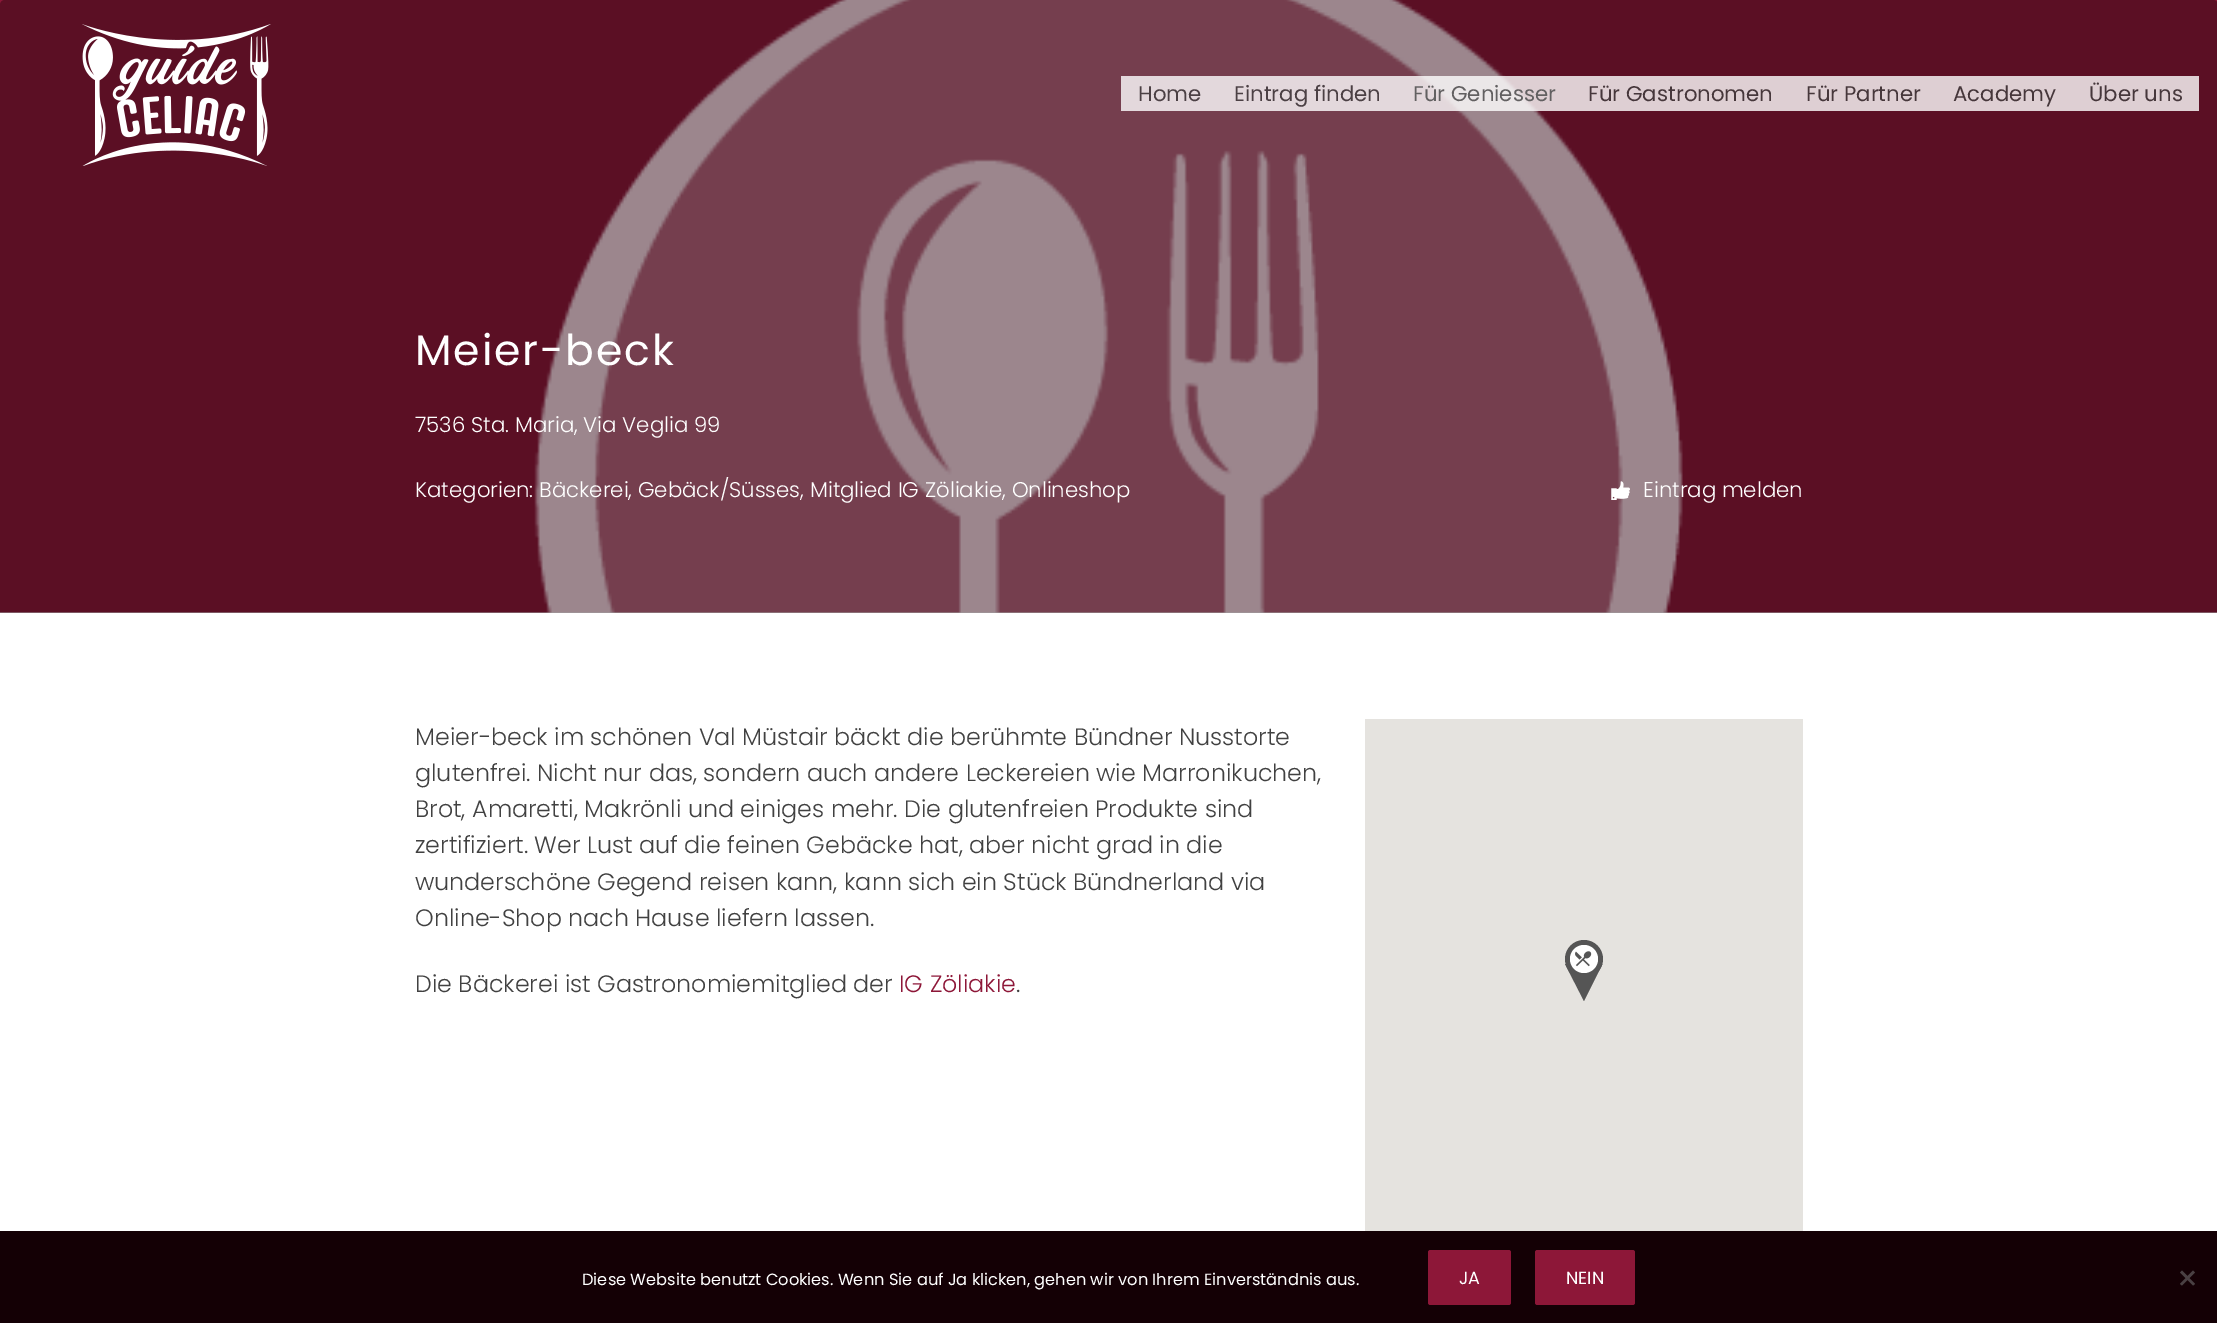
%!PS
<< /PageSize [2217 1323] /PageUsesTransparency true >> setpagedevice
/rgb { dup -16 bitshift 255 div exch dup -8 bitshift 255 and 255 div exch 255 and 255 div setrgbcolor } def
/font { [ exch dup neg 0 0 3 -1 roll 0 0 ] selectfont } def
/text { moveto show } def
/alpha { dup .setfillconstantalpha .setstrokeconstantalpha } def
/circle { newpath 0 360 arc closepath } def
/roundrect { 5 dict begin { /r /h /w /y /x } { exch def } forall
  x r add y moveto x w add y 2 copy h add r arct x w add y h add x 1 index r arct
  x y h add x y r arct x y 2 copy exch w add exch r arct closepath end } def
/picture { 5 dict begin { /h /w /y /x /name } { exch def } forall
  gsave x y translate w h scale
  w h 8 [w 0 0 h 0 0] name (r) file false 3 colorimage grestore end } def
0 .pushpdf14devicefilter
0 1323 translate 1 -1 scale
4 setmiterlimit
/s1 { /Poppins-Regular 21.25 font 16#4B4044 rgb } def
/s2 { /Poppins-Regular 21.25 font 16#626061 rgb } def
/s3 { /Poppins-Regular 21.25 font 16#46373B rgb } def
/s4 { /Poppins-Light 21.25 font 16#FFFFFF rgb } def
/s5 { /Poppins-Light 23.75 font 16#414141 rgb } def
/s6 { /Poppins-Light 23.75 font 16#8D1738 rgb } def
/s7 { /Poppins-Regular 16.25 font 16#FFFFFF rgb } def
/s8 { /Poppins-Regular 17.5 font 16#FFFFFF rgb } def
16#FFFFFF rgb
0 0 2217 1323 rectfill
16#F5F5F5 rgb
0 612 2217 1 rectfill
(pic2.raw) 0 0 2217 613 picture
0.35 alpha
16#000000 rgb
5 0 moveto 2213 0 lineto 2216 0 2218 2 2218 5 curveto 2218 613 lineto 0 613 lineto 0 5 lineto 0 2 2 0 5 0 curveto closepath fill
1 alpha
(pic1.raw) 82 24 189 142 picture
0.8 alpha
16#FFFFFF rgb
1121 76 1078 35 rectfill
1 alpha
s1
(Home) 1138 101 text
(Eintrag finden) 1234 101 text
s2
(Für Geniesser) 1413 101 text
s3
(Für Gastronomen) 1588 101 text
(Für Partner) 1806 101 text
(Academy) 1953 101 text
(Über uns) 2089 101 text
/Poppins-Regular 42.5 font
16#FFFFFF rgb
415 365 moveto 1.9 0 (Meier-beck) ashow
s4
(7536 Sta. Maria, Via Veglia 99) 415 432 text
(Kategorien: Bäckerei, Gebäck/Süsses, Mitglied IG Zöliakie, Onlineshop) 415 497 text
(pic3.raw) 1611 481 19 19 picture
(Eintrag melden) 1643 497 text
s5
(Meier-beck im schönen Val Müstair bäckt die berühmte Bündner Nusstorte) 415 745 text
(glutenfrei. Nicht nur das, sondern auch andere Leckereien wie Marronikuchen,) 415 781 text
(Brot, Amaretti, Makrönli und einiges mehr. Die glutenfreien Produkte sind) 415 817 text
(zertifiziert. Wer Lust auf die feinen Gebäcke hat, aber nicht grad in die) 415 853 text
(wunderschöne Gegend reisen kann, kann sich ein Stück Bündnerland via) 415 890 text
(Online-Shop nach Hause liefern lassen.) 415 926 text
(Die Bäckerei ist Gastronomiemitglied der) 415 992 text
s6
(IG Zöliakie) 899 992 text
s5
(.) 1016 992 text
16#E5E3DF rgb
1365 719 438 512 rectfill
16#555555 rgb
1565 964 moveto 1602.5 964 lineto 1584 1001 lineto closepath fill
1584 959 19 circle fill
16#FFFFFF rgb
1584 959 14 circle fill
(pic4.raw) 1575 951 17 16 picture
16#140005 rgb
0 1231 2217 92 rectfill
s7
(Diese Website benutzt Cookies. Wenn Sie auf Ja klicken, gehen wir von Ihrem Einverständnis aus.) 582 1285 text
16#8D1738 rgb
1428 1250 83 55 2.5 roundrect fill
s8
(JA) 1459 1284 text
16#8D1738 rgb
1535 1250 100 55 2.5 roundrect fill
s8
(NEIN) 1566 1284 text
16#4A4043 rgb
2193 1270.5 moveto 2195 1272.5 lineto 2182 1285.5 lineto 2180 1284 lineto closepath fill
2180 1272.5 moveto 2182 1270.5 lineto 2195 1284 lineto 2193 1285.5 lineto closepath fill
.poppdf14devicefilter showpage
